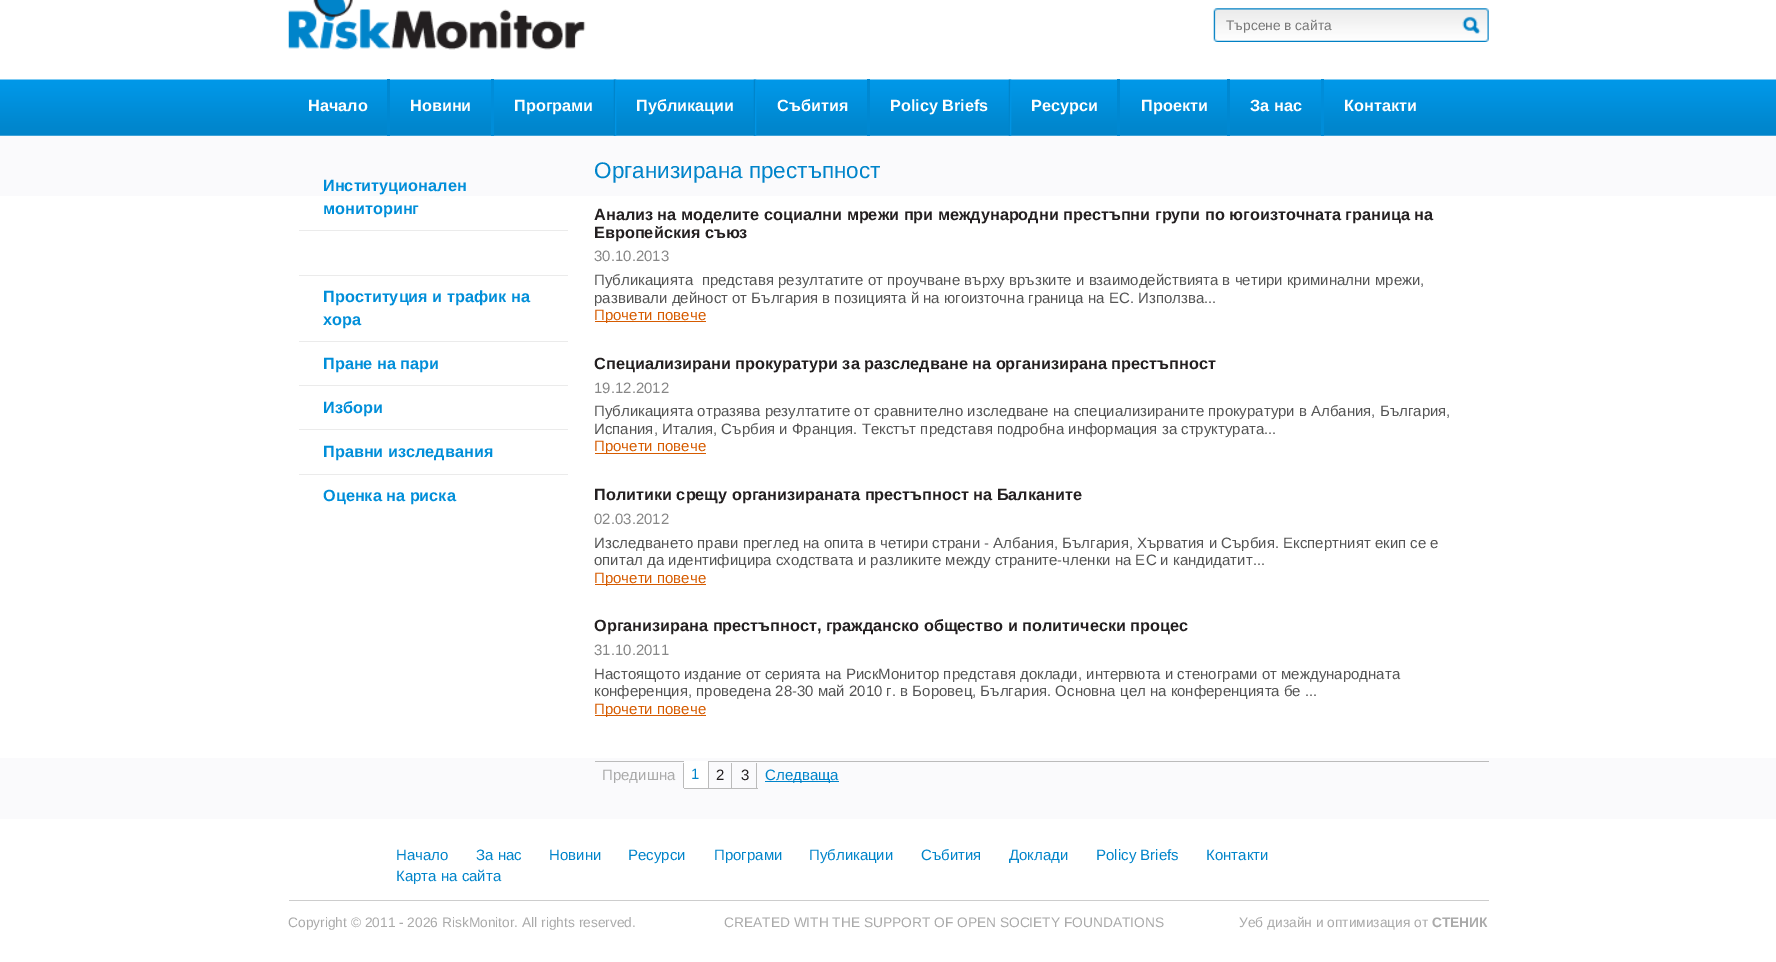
%!PS
<< /PageSize [1776 962] >> setpagedevice
/rgb { dup -16 bitshift 255 div exch dup -8 bitshift 255 and 255 div exch 255 and 255 div setrgbcolor } def
/font { [ exch dup neg 0 0 3 -1 roll 0 0 ] selectfont } def
/text { moveto show } def
/picture { 5 dict begin { /h /w /y /x /name } { exch def } forall
  gsave x y translate w h scale
  w h 8 [w 0 0 h 0 0] name (r) file false 3 colorimage grestore end } def
0 962 translate 1 -1 scale
4 setmiterlimit
/s1 { /LiberationSans-Regular 13.75 font 16#777777 rgb } def
/s2 { /LiberationSans-Bold 16.25 font 16#FFFFFF rgb } def
/s3 { /LiberationSans-Bold 16.25 font 16#008ED9 rgb } def
/s4 { /LiberationSans-Regular 22.5 font 16#0084CA rgb } def
/s5 { /LiberationSans-Bold 16.25 font 16#231F20 rgb } def
/s6 { /LiberationSans-Regular 15 font 16#878787 rgb } def
/s7 { /LiberationSans-Regular 15 font 16#555555 rgb } def
/s8 { /LiberationSans-Regular 15 font 16#D65B00 rgb } def
/s9 { /LiberationSans-Regular 15 font 16#AAAAAA rgb } def
/s10 { /LiberationSans-Regular 15 font 16#0084CA rgb } def
/s11 { /LiberationSans-Regular 15 font 16#231F20 rgb } def
/s12 { /LiberationSans-Regular 13.75 font 16#AAAAAA rgb } def
/s13 { /LiberationSans-Bold 13.75 font 16#AAAAAA rgb } def
16#FFFFFF rgb
0 0 1776 962 rectfill
(pic1.raw) 288 0 298 50 picture
(pic2.raw) 1213 8 276 34 picture
s1
(Търсене в сайта) 1226 30 text
(pic3.raw) 0 79 1776 57 picture
16#0088D1 rgb
387 79 3 57 rectfill
s2
(Начало) 308 111 text
16#008DD9 rgb
491 79 3 57 rectfill
s2
(Новини) 410 111 text
(pic4.raw) 613 79 4 57 picture
(Програми) 514 111 text
(pic4.raw) 753 79 4 57 picture
(Публикации) 636 111 text
16#0088D1 rgb
867 79 3 57 rectfill
s2
(Събития) 777 111 text
(pic5.raw) 1008 79 4 57 picture
(Policy Briefs) 890 111 text
16#0088D1 rgb
1117 79 3 57 rectfill
s2
(Ресурси) 1031 111 text
16#0088D1 rgb
1227 79 3 57 rectfill
s2
(Проекти) 1141 111 text
16#008DD9 rgb
1321 79 3 57 rectfill
s2
(За нас) 1250 111 text
(Контакти) 1344 111 text
16#FAFAFC rgb
0 758 1776 61 rectfill
0 136 1776 60 rectfill
16#EBEBEB rgb
299 230 269 1 rectfill
s3
(Институционален) 323 191 text
(мониторинг) 323 214 text
16#EBEBEB rgb
299 275 269 1 rectfill
299 341 269 1 rectfill
s3
(Проституция и трафик на) 323 302 text
(хора) 323 325 text
16#EBEBEB rgb
299 385 269 1 rectfill
s3
(Пране на пари) 323 369 text
16#EBEBEB rgb
299 429 269 1 rectfill
s3
(Избори) 323 413 text
16#EBEBEB rgb
299 474 269 1 rectfill
s3
(Правни изследвания) 323 457 text
(Оценка на риска) 323 501 text
s4
(Организирана престъпност) 594 178 text
s5
(Анализ на моделите социални мрежи при международни престъпни групи по югоизточната граница на) 594 220 text
(Европейския съюз) 594 238 text
s6
(30.10.2013) 594 261 text
s7
(Публикацията  представя резултатите от проучване върху връзките и взаимодействията в четири криминални мрежи,) 594 285 text
(развивали дейност от България в позицията й на югоизточна граница на ЕС. Използва...) 594 303 text
16#D65B00 rgb
595 321 111 1 rectfill
(Прочети повече) 594 320 text
s5
(Специализирани прокуратури за разследване на организирана престъпност) 594 369 text
s6
(19.12.2012) 594 393 text
s7
(Публикацията отразява резултатите от сравнително изследване на специализираните прокуратури в Албания, България,) 594 416 text
(Испания, Италия, Сърбия и Франция. Текстът представя подробна информация за структурата...) 594 434 text
16#D65B00 rgb
595 453 111 1 rectfill
(Прочети повече) 594 451 text
s5
(Политики срещу организираната престъпност на Балканите) 594 500 text
s6
(02.03.2012) 594 524 text
s7
(Изследването прави преглед на опита в четири страни - Албания, България, Хърватия и Сърбия. Експертният екип се е) 594 548 text
(опитал да идентифицира сходствата и разликите между страните-членки на ЕС и кандидатит...) 594 565 text
16#D65B00 rgb
595 584 111 1 rectfill
(Прочети повече) 594 583 text
s5
(Организирана престъпност, гражданско общество и политически процес) 594 631 text
s6
(31.10.2011) 594 655 text
s7
(Настоящото издание от серията на РискМонитор представя доклади, интервюта и стенограми от международната) 594 679 text
(конференция, проведена 28-30 май 2010 г. в Боровец, България. Основна цел на конференцията бе ...) 594 696 text
16#D65B00 rgb
595 715 111 1 rectfill
(Прочети повече) 594 714 text
16#BBBBBB rgb
595 761 894 1 rectfill
683 763 1 25 rectfill
s9
(Предишна) 602 780 text
16#FFFFFF rgb
684 761 24 27 rectfill
16#BBBBBB rgb
708 761 1 28 rectfill
684 788 25 1 rectfill
s10
(1) 691 779 text
16#BBBBBB rgb
731 763 1 26 rectfill
709 788 24 1 rectfill
s11
(2) 716 780 text
16#BBBBBB rgb
756 763 1 26 rectfill
733 788 25 1 rectfill
s11
(3) 741 780 text
16#0084CA rgb
765 781 74 1 rectfill
(Следваща) 765 780 text
(Начало) 396 860 text
(За нас) 476 860 text
(Новини) 549 860 text
(Ресурси) 628 860 text
(Програми) 714 860 text
(Публикации) 809 860 text
(Събития) 921 860 text
(Доклади) 1009 860 text
(Policy Briefs) 1096 860 text
(Контакти) 1206 860 text
(Карта на сайта) 396 881 text
16#CDCDCD rgb
289 900 1200 1 rectfill
s12
(Copyright © 2011 - 2026 RiskMonitor. All rights reserved.) 288 927 text
(CREATED WITH THE SUPPORT OF OPEN SOCIETY FOUNDATIONS) 724 927 text
(Уеб дизайн и оптимизация от) 1239 927 text
s13
(СТЕНИК) 1432 927 text
showpage
